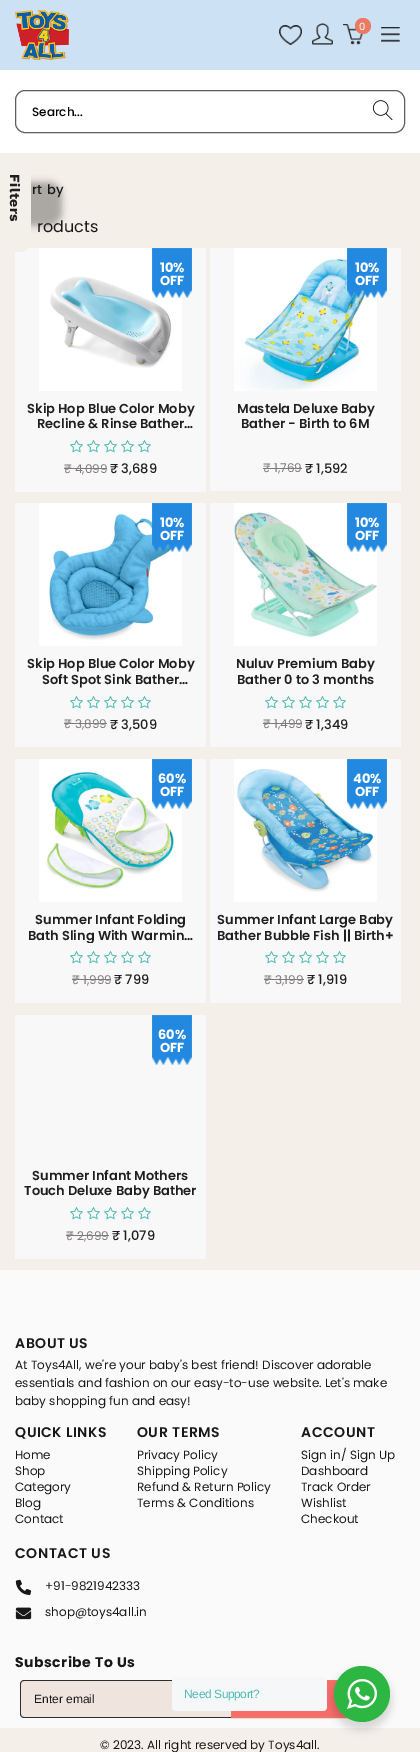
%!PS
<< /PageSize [420 1752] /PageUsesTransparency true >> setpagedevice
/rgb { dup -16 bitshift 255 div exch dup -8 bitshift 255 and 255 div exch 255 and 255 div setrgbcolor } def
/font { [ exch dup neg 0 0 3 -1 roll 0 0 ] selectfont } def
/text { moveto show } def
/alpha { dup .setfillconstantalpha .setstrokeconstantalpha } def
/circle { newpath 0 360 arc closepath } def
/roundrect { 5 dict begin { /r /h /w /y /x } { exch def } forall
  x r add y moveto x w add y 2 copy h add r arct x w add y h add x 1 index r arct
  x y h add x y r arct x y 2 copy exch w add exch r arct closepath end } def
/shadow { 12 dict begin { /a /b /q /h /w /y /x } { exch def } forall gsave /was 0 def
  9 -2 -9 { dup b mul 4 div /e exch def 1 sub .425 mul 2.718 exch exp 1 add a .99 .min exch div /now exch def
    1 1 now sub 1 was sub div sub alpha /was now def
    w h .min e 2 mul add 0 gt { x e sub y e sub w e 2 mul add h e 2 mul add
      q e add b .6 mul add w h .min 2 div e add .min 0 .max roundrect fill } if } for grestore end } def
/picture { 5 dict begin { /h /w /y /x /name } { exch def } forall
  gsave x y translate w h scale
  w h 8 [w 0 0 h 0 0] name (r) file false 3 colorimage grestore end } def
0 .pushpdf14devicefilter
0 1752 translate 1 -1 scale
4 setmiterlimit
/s1 { /Poppins-Regular 10 font 16#FFFFFF rgb } def
/s2 { /Poppins-Medium 12 font 16#000000 rgb } def
/s3 { /Poppins-Regular 16 font 16#181818 rgb } def
/s4 { /Poppins-Bold 13 font 16#FFFFFF rgb } def
/s5 { /Poppins-SemiBold 13 font 16#201F1F rgb } def
/s6 { /Poppins-Regular 12 font 16#7E7A7A rgb } def
/s7 { /Poppins-Medium 13 font 16#201F1F rgb } def
/s8 { /Poppins-Regular 12 font 16#181818 rgb } def
/s9 { /LiberationSans-Regular 12 font 16#181818 rgb } def
16#F4EFE9 rgb
0 0 420 1752 rectfill
16#FFFFFF rgb
0 70 420 83 rectfill
16#CCE1F4 rgb
0 0 420 70 rectfill
(pic1.raw) 15 10 54 50 picture
(pic2.raw) 279 25 23 20 picture
(pic3.raw) 312 23 21 22 picture
(pic4.raw) 343 24 21 21 picture
16#EA7A64 rgb
363 26 8 circle fill
s1
(0) 359 30 text
(pic5.raw) 381 27 19 15 picture
16#5D5D5D rgb
15.5 90.5 389 42 9.5 roundrect stroke
s2
(Search...) 32 116 text
(pic6.raw) 373 100 20 21 picture
16#616161 rgb
-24 182 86 44 13 3.5 0.51 shadow
16#F8F8F8 rgb
15 248 191 244 rectfill
16#F3EFE9 rgb
31 166 moveto 31 242 lineto 31 247 26 252 21 252 curveto -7 252 lineto -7 156 lineto 21 156 lineto 26 156 31 161 31 166 curveto closepath fill
/WorkSans-Bold 14 font
16#201F1F rgb
gsave 10 174 translate 90 rotate 0 0 moveto 0.5 0 (Filters) ashow grestore
/Poppins-Medium 13 font
16#181818 rgb
32 194 moveto 0.5 0 (rt by) ashow
s3
(roducts) 37 232 text
(pic7.raw) 39 248 143 143 picture
(pic8.raw) 152 248 40 50 picture
s4
(10%) 160 272 text
(OFF) 160 285 text
s5
(Skip Hop Blue Color Moby) 27 413 text
(Recline & Rinse Bather…) 37 428 text
(pic9.raw) 70 440 13 13 picture
(pic9.raw) 87 440 13 13 picture
(pic9.raw) 104 440 13 13 picture
(pic9.raw) 121 440 13 13 picture
(pic9.raw) 138 440 13 13 picture
s6
(₹ 4,099) 64 473 text
64 468 43 1 rectfill
s7
(₹ 3,689) 110 473 text
16#F8F8F8 rgb
210 248 191 243 rectfill
(pic10.raw) 234 248 143 143 picture
(pic11.raw) 347 248 40 50 picture
s4
(10%) 355 272 text
(OFF) 355 285 text
s5
(Mastela Deluxe Baby) 237 413 text
(Bather - Birth to 6M) 241 428 text
s6
(₹ 1,769) 263 472 text
263 468 39 1 rectfill
s7
(₹ 1,592) 305 473 text
16#F8F8F8 rgb
15 503 191 244 rectfill
(pic12.raw) 39 503 143 143 picture
(pic13.raw) 152 503 40 49 picture
s4
(10%) 160 527 text
(OFF) 160 540 text
s5
(Skip Hop Blue Color Moby) 27 668 text
(Soft Spot Sink Bather…) 42 684 text
(pic9.raw) 70 696 13 13 picture
(pic9.raw) 87 696 13 13 picture
(pic9.raw) 104 696 13 13 picture
(pic9.raw) 121 696 13 13 picture
(pic9.raw) 138 696 13 13 picture
s6
(₹ 3,899) 64 728 text
64 723 43 1 rectfill
s7
(₹ 3,509) 110 729 text
16#F8F8F8 rgb
210 503 191 244 rectfill
(pic14.raw) 234 503 143 143 picture
(pic15.raw) 347 503 40 49 picture
s4
(10%) 355 527 text
(OFF) 355 540 text
s5
(Nuluv Premium Baby) 236 668 text
(Bather 0 to 3 months) 237 684 text
(pic9.raw) 265 696 13 13 picture
(pic9.raw) 282 696 13 13 picture
(pic9.raw) 299 696 13 13 picture
(pic9.raw) 316 696 13 13 picture
(pic9.raw) 333 696 13 13 picture
s6
(₹ 1,499) 263 728 text
263 723 39 1 rectfill
s7
(₹ 1,349) 305 729 text
16#F8F8F8 rgb
15 759 191 244 rectfill
(pic16.raw) 39 759 143 143 picture
(pic8.raw) 152 759 40 50 picture
s4
(60%) 158 783 text
(OFF) 160 796 text
s5
(Summer Infant Folding) 35 924 text
gsave
20 912 181 31 rectclip
(Bath Sling With Warmin…) 28 940 text
grestore
(pic9.raw) 70 951 13 13 picture
(pic9.raw) 87 951 13 13 picture
(pic9.raw) 104 951 13 13 picture
(pic9.raw) 121 951 13 13 picture
(pic9.raw) 138 951 13 13 picture
s6
(₹ 1,999) 72 984 text
72 979 39 1 rectfill
s7
(₹ 799) 114 984 text
16#F8F8F8 rgb
210 759 191 244 rectfill
(pic17.raw) 234 759 143 143 picture
(pic8.raw) 347 759 40 50 picture
s4
(40%) 353 783 text
(OFF) 355 796 text
s5
(Summer Infant Large Baby) 217 924 text
(Bather Bubble Fish || Birth+) 217 940 text
(pic9.raw) 265 951 13 13 picture
(pic9.raw) 282 951 13 13 picture
(pic9.raw) 299 951 13 13 picture
(pic9.raw) 316 951 13 13 picture
(pic9.raw) 333 951 13 13 picture
s6
(₹ 3,199) 264 984 text
264 979 40 1 rectfill
s7
(₹ 1,919) 307 984 text
16#F8F8F8 rgb
15 1015 191 244 rectfill
(pic18.raw) 152 1015 40 50 picture
s4
(60%) 158 1039 text
(OFF) 160 1052 text
s5
(Summer Infant Mothers) 32 1180 text
(Touch Deluxe Baby Bather) 24 1195 text
(pic9.raw) 70 1207 13 13 picture
(pic9.raw) 87 1207 13 13 picture
(pic9.raw) 104 1207 13 13 picture
(pic9.raw) 121 1207 13 13 picture
(pic9.raw) 138 1207 13 13 picture
s6
(₹ 2,699) 66 1240 text
66 1235 43 1 rectfill
s7
(₹ 1,079) 112 1240 text
16#FAFAFA rgb
0 1270 420 458 rectfill
/Poppins-SemiBold 14 font
16#181818 rgb
15 1348 moveto 0.5 0 (ABOUT US) ashow
s8
(At Toys4All, we're your baby's best friend! Discover adorable) 15 1369 text
(essentials and fashion on our easy-to-use website. Let's make) 15 1387 text
(baby shopping fun and easy!) 15 1405 text
/Poppins-SemiBold 14 font
15 1437 moveto 0.5 0 (QUICK LINKS) ashow
s8
(Home) 15 1459 text
(Shop) 15 1475 text
(Category) 15 1491 text
(Blog) 15 1507 text
(Contact) 15 1523 text
/Poppins-SemiBold 14 font
137 1437 moveto 0.5 0 (OUR TERMS) ashow
s8
(Privacy Policy) 137 1459 text
(Shipping Policy) 137 1475 text
(Refund & Return Policy) 137 1491 text
(Terms & Conditions) 137 1507 text
/Poppins-SemiBold 14 font
301 1437 moveto 0.5 0 (ACCOUNT) ashow
s8
(Sign in/ Sign Up) 301 1459 text
(Dashboard) 301 1475 text
(Track Order) 301 1491 text
(Wishlist) 301 1507 text
(Checkout) 301 1523 text
/Poppins-SemiBold 14 font
15 1558 moveto 0.5 0 (CONTACT US) ashow
(pic19.raw) 15 1579 17 16 picture
s8
(+91-9821942333) 45 1590 text
(pic20.raw) 15 1607 17 13 picture
(shop@toys4all.in) 45 1616 text
/Poppins-Bold 14 font
15 1667 moveto 0.5 0 (Subscribe To Us) ashow
16#F0E4DF rgb
24 1680 moveto 231 1680 lineto 231 1718 lineto 24 1718 lineto 22 1718 20 1716 20 1714 curveto 20 1684 lineto 20 1682 22 1680 24 1680 curveto closepath fill
16#2D2D2D rgb
24 1680 moveto 231 1680 lineto 231 1718 lineto 24 1718 lineto 22 1718 20 1716 20 1714 curveto 20 1684 lineto 20 1682 22 1680 24 1680 curveto closepath 24 1681 moveto 231 1681 lineto 231 1717 lineto 24 1717 lineto 22 1717 21 1716 21 1714 curveto 21 1684 lineto 21 1682 22 1681 24 1681 curveto closepath eofill
s9
(Enter email) 34 1703 text
16#F76B6A rgb
232 1681 116 37 rectfill
16#EA7A64 rgb
231.5 1680.5 119 37 rectstroke
s8
(© 2023. All right reserved by Toys4all.) 100 1749 text
16#000000 rgb
332 1670 60 60 30 4 0.14 shadow
16#F5F7F9 rgb
172 1677 155 34 4 roundrect fill
/LiberationSans-Regular 12 font
16#50BAB3 rgb
184 1698 moveto -0.4 0 (Need Support?) ashow
16#2DB742 rgb
362 1694 28 circle fill
(pic21.raw) 347 1679 30 30 picture
.poppdf14devicefilter showpage
